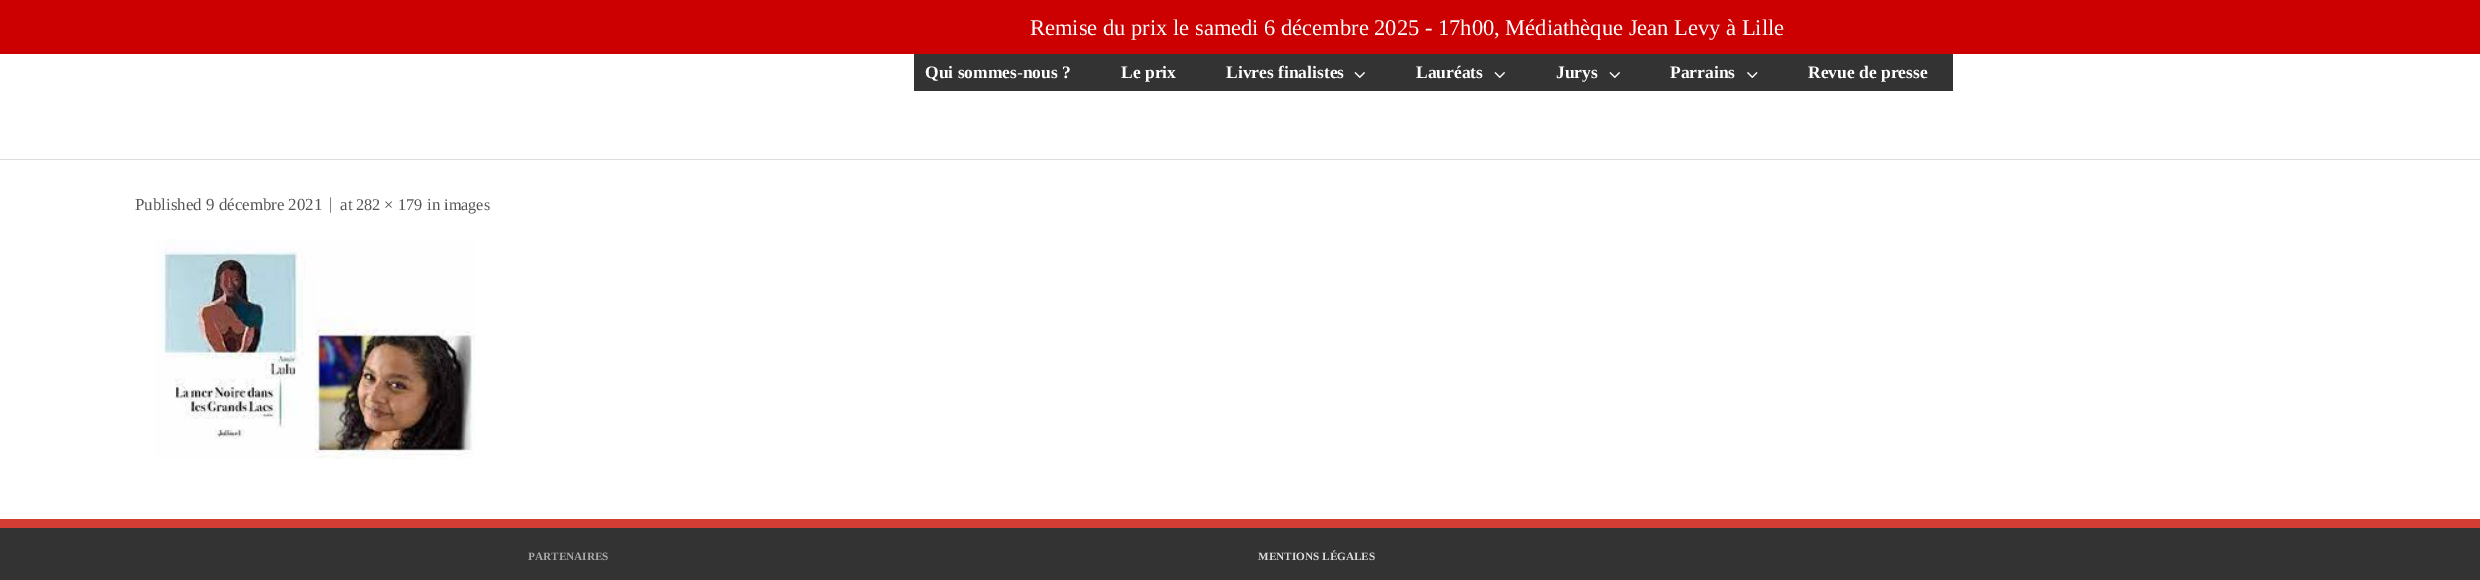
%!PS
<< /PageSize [2480 580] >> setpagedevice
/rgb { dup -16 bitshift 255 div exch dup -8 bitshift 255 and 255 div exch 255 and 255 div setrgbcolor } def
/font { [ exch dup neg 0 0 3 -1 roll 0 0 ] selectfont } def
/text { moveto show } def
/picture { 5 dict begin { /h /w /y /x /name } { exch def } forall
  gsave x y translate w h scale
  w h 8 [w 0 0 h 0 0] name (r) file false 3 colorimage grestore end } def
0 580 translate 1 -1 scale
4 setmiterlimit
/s1 { /LiberationSerif-Regular 22.5 font 16#FFFFFF rgb } def
/s2 { /LiberationSerif-Bold 17.5 font 16#FFFFFF rgb } def
/s3 { /LiberationSerif-Regular 16.9 font 16#555555 rgb } def
/s4 { /LiberationSerif-Regular 16.25 font 16#555555 rgb } def
/s5 { /LiberationSerif-Bold 11.25 font 16#AAAAAA rgb } def
/s6 { /LiberationSerif-Bold 11.25 font 16#DDDDDD rgb } def
16#FFFFFF rgb
0 0 2480 580 rectfill
16#DDDDDD rgb
0 159 2480 1 rectfill
16#CC0000 rgb
0 0 2480 54 rectfill
s1
(Remise du prix le samedi 6 décembre 2025 - 17h00, Médiathèque Jean Levy à Lille) 1030 35 text
16#333333 rgb
914 54 1039 37 rectfill
s2
(Qui sommes-nous ?) 925 78 text
(Le prix) 1121 78 text
(Livres finalistes) 1226 78 text
(pic1.raw) 1354 72 11 6 picture
(Lauréats) 1416 78 text
(pic1.raw) 1494 72 11 6 picture
(Jurys) 1556 78 text
(pic1.raw) 1609 72 11 6 picture
(Parrains) 1670 78 text
(pic2.raw) 1747 72 11 6 picture
(Revue de presse) 1808 78 text
s3
(Published 9 décembre 2021) 135 210 text
(|) 329 209 text
(at) 340 210 text
s4
(282 × 179) 356 210 text
s3
(in) 427 210 text
s4
(images) 444 210 text
(pic3.raw) 155 239 320 220 picture
16#333333 rgb
0 528 2480 52 rectfill
16#D33D33 rgb
0 519 2480 9 rectfill
s5
(PARTENAIRES) 528 560 text
s6
(MENTIONS LÉGALES) 1258 560 text
showpage
